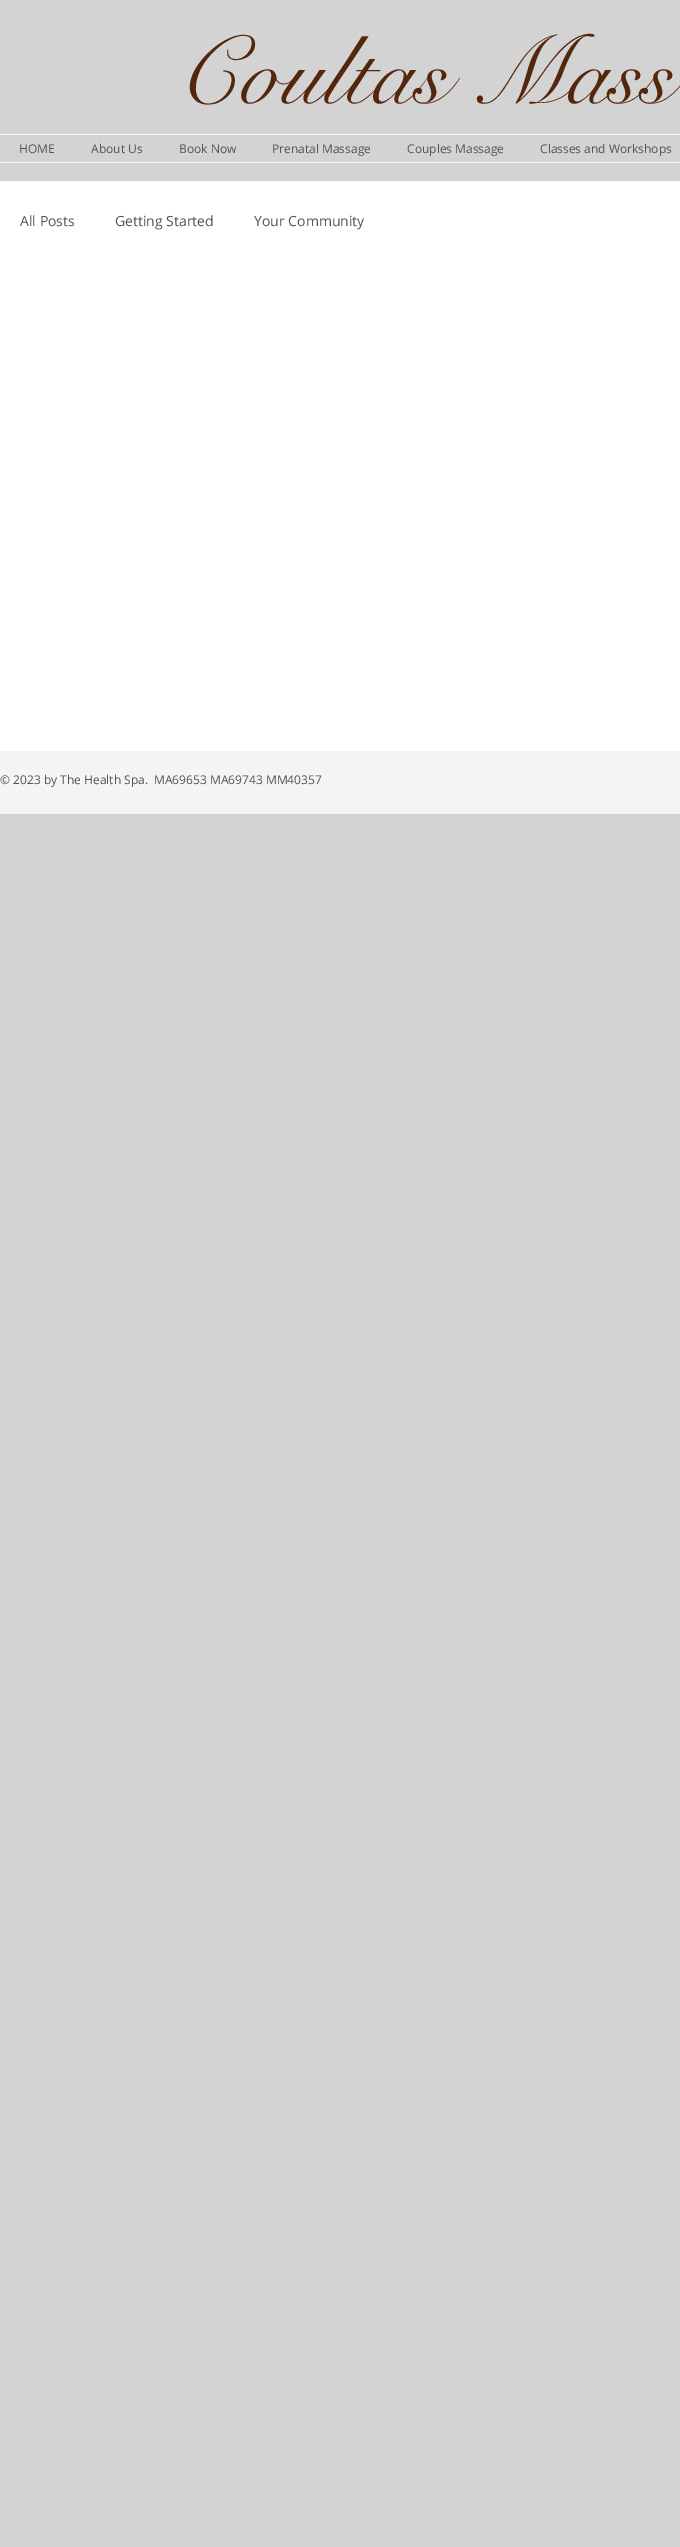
%!PS
<< /PageSize [680 2547] >> setpagedevice
/rgb { dup -16 bitshift 255 div exch dup -8 bitshift 255 and 255 div exch 255 and 255 div setrgbcolor } def
/font { [ exch dup neg 0 0 3 -1 roll 0 0 ] selectfont } def
/text { moveto show } def
0 2547 translate 1 -1 scale
4 setmiterlimit
/s1 { /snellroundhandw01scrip-Regular 96 font 16#54270D rgb } def
/s2 { /OpenSans-Regular 12 font 16#545454 rgb } def
/s3 { /OpenSans-Regular 14 font 16#545454 rgb } def
16#D3D3D3 rgb
0 0 680 2547 rectfill
s1
(Coultas Mass) 176 103 text
16#F4F4F4 rgb
0 134 680 1 rectfill
0 162 680 1 rectfill
s2
(HOME) 19 153 text
(About Us) 91 153 text
(Book Now) 179 153 text
(Prenatal Massage) 272 153 text
(Couples Massage) 407 153 text
(Classes and Workshops) 540 153 text
16#FFFFFF rgb
0 181 680 570 rectfill
s3
(All Posts) 20 226 text
(Getting Started) 115 226 text
(Your Community) 254 226 text
16#F4F4F4 rgb
0 751 680 63 rectfill
s2
(© 2023 by The Health Spa.  MA69653 MA69743 MM40357) 0 784 text
showpage
